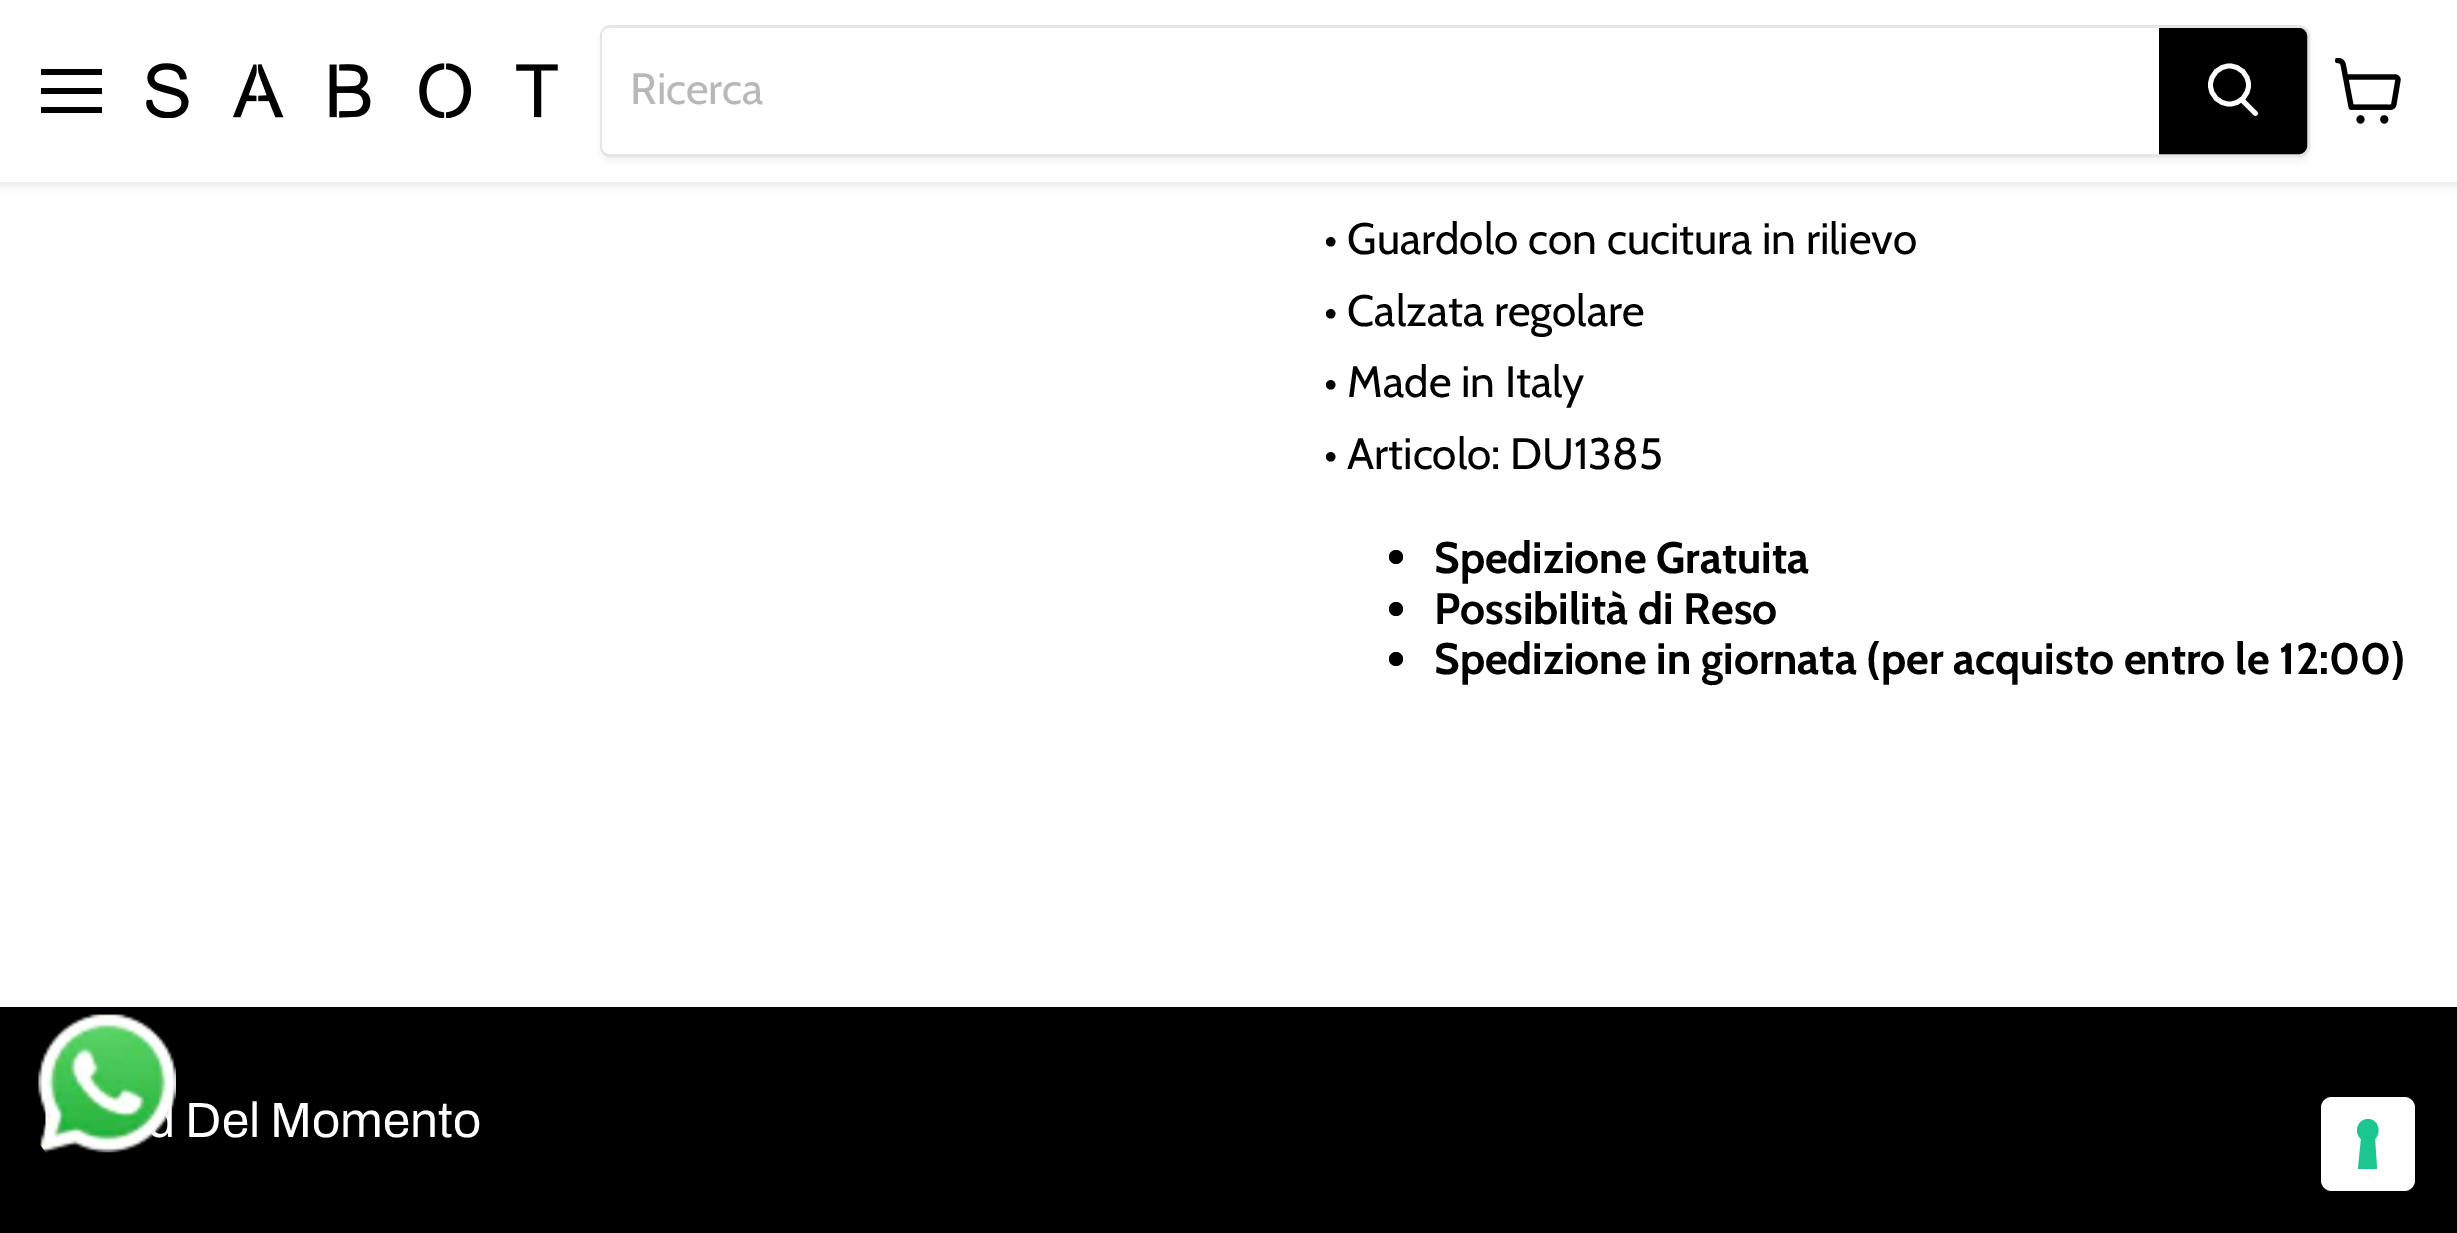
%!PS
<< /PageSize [2457 1233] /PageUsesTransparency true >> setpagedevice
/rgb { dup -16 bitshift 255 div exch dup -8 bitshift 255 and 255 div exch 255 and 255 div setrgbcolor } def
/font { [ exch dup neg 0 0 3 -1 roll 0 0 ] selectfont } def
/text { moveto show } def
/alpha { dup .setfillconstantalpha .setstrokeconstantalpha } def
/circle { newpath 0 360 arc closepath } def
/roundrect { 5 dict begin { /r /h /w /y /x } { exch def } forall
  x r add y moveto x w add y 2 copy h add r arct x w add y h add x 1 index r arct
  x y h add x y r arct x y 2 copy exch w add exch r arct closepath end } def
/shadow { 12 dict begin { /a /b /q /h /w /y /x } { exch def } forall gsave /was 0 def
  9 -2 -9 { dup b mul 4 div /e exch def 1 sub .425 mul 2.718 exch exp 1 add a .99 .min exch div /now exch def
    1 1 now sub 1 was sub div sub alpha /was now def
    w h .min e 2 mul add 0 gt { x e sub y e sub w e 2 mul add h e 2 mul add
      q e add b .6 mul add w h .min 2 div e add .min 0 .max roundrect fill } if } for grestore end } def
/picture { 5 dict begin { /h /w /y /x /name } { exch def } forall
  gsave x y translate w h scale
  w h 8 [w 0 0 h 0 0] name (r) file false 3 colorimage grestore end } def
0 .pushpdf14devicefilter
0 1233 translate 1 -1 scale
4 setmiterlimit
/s1 { /Cabin-Regular 44 font 16#B8B8B8 rgb } def
/s2 { /Cabin-Regular 44 font 16#000000 rgb } def
/s3 { /Cabin-Bold 44 font 16#000000 rgb } def
/s4 { /Archivo-Regular 49.5 font 16#FFFFFF rgb } def
16#FFFFFF rgb
0 0 2457 1233 rectfill
16#808080 rgb
0 3 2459 181 0 5.5 0.25 shadow
16#FFFFFF rgb
0 0 2457 182 rectfill
16#000000 rgb
41 69 61 6 rectfill
41 88 61 6 rectfill
41 107 61 6 rectfill
(pic1.raw) 146 63 412 55 picture
gsave
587 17 moveto 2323 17 lineto 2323 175 lineto 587 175 lineto closepath 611 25 moveto 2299 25 lineto 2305 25 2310 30 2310 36 curveto 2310 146 lineto 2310 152 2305 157 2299 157 curveto 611 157 lineto 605 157 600 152 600 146 curveto 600 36 lineto 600 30 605 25 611 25 curveto closepath eoclip newpath
16#808080 rgb
600 30 1710 132 11 4 0.11 shadow
grestore
0.2 alpha
16#808080 rgb
3 setlinewidth
601.5 26.5 1707 129 9.5 roundrect stroke
1 alpha
16#FFFFFF rgb
610 28 moveto 2159 28 lineto 2159 154 lineto 610 154 lineto 605.5 154 602 150.5 602 146 curveto 602 36 lineto 602 31.5 605.5 28 610 28 curveto closepath fill
s1
(Ricerca) 630 104 text
16#000000 rgb
2160.5 29.5 moveto 2299 29.5 lineto 2302.5 29.5 2305.5 32.5 2305.5 36 curveto 2305.5 146 lineto 2305.5 149.5 2302.5 152.5 2299 152.5 curveto 2160.5 152.5 lineto closepath gsave fill grestore
stroke
16#FFFFFF rgb
4.8 setlinewidth
1 setlinecap
2255.5 113.5 moveto 2242.5 100.5 lineto stroke
0 setlinecap
2229.5 85 19 circle stroke
(pic2.raw) 2335 58 66 66 picture
s2
(• Guardolo con cucitura in rilievo) 1324 254 text
(• Calzata regolare) 1324 326 text
(• Made in Italy) 1324 397 text
(• Articolo: DU1385) 1324 469 text
1396 557 7 circle fill
s3
(Spedizione Gratuita) 1434 573 text
1396 609 7 circle fill
(Possibilità di Reso) 1434 624 text
1396 659 7 circle fill
(Spedizione in giornata \(per acquisto entro le 12:00\)) 1434 674 text
0 1007 2457 226 rectfill
s4
(d Del Momento) 147 1137 text
(pic3.raw) 38 1014 138 139 picture
2321 1097 94 94 11 roundrect fill
16#1CC691 rgb
2368 1119 moveto 2378 1119 2382 1132 2375 1139 curveto 2377 1169 lineto 2358 1169 lineto 2361 1139 lineto 2353 1132 2358 1119 2368 1119 curveto closepath eofill
.poppdf14devicefilter showpage
